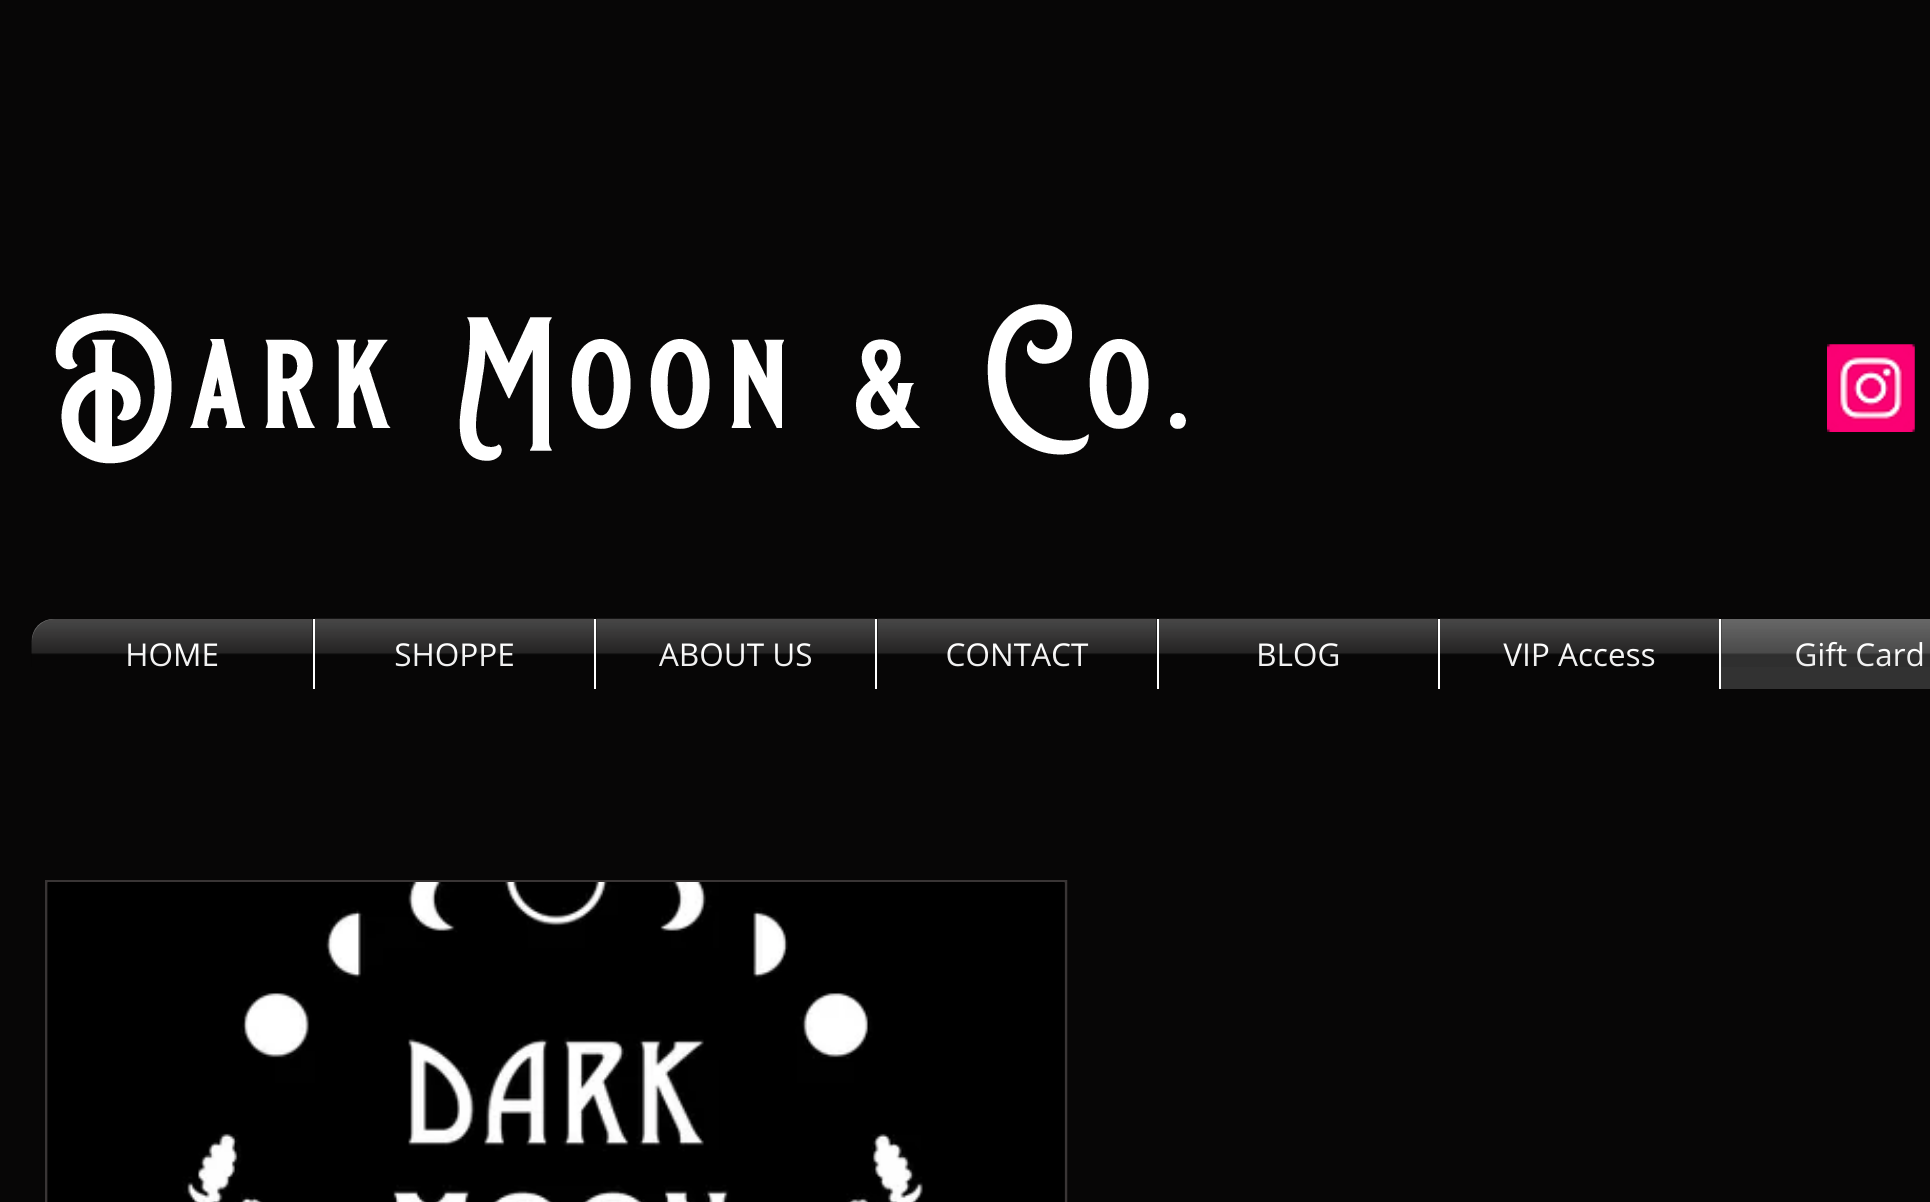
%!PS
<< /PageSize [1930 1202] >> setpagedevice
/rgb { dup -16 bitshift 255 div exch dup -8 bitshift 255 and 255 div exch 255 and 255 div setrgbcolor } def
/font { [ exch dup neg 0 0 3 -1 roll 0 0 ] selectfont } def
/text { moveto show } def
/picture { 5 dict begin { /h /w /y /x /name } { exch def } forall
  gsave x y translate w h scale
  w h 8 [w 0 0 h 0 0] name (r) file false 3 colorimage grestore end } def
0 1202 translate 1 -1 scale
4 setmiterlimit
/s1 { /OpenSans-Regular 31.5 font 16#FFFFFF rgb } def
16#070606 rgb
0 0 1930 1202 rectfill
/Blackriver-Bold 126 font
16#FFFFFF rgb
52 428 moveto 12.6 0 (Dark Moon & Co.) ashow
(pic1.raw) 1827 344 88 88 picture
(pic2.raw) 31 619 24 35 picture
16#070606 rgb
55 619 moveto 313 619 lineto 313 689 lineto 55 689 lineto 42.5 689 32 678.5 32 666 curveto 32 642 lineto 32 629.5 42.5 619 55 619 curveto closepath fill
s1
(HOME) 125 666 text
(pic3.raw) 31 619 282 48 picture
313 619 2 70 rectfill
(SHOPPE) 394 666 text
(pic4.raw) 315 618 279 49 picture
594 619 2 70 rectfill
(ABOUT US) 659 666 text
(pic5.raw) 596 618 279 49 picture
875 619 2 70 rectfill
(CONTACT) 946 666 text
(pic6.raw) 877 618 280 49 picture
1157 619 2 70 rectfill
(BLOG) 1256 666 text
(pic7.raw) 1159 618 279 49 picture
1438 619 2 70 rectfill
(VIP Access) 1503 666 text
(pic8.raw) 1440 618 279 49 picture
16#323232 rgb
1721 619 209 70 rectfill
16#FFFFFF rgb
1719 619 2 70 rectfill
(Gift Card) 1794 666 text
(pic9.raw) 1721 619 209 48 picture
16#393535 rgb
2 setlinewidth
46 881 1020 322 rectstroke
(pic10.raw) 48 882 1016 320 picture
showpage
